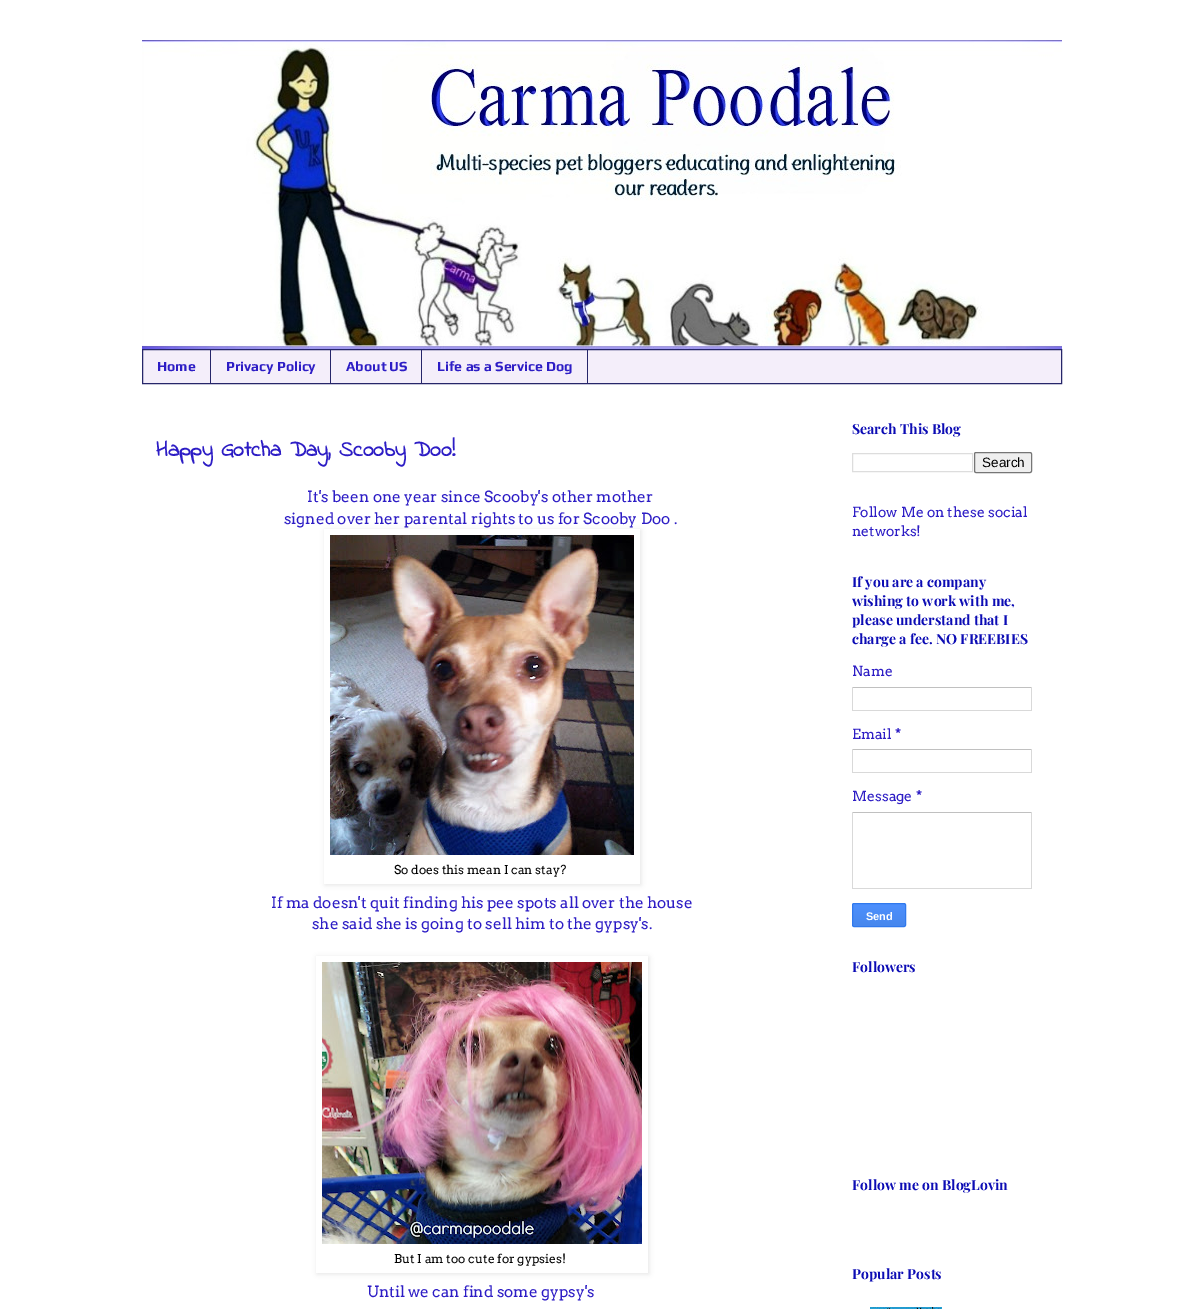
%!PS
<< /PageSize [1204 1309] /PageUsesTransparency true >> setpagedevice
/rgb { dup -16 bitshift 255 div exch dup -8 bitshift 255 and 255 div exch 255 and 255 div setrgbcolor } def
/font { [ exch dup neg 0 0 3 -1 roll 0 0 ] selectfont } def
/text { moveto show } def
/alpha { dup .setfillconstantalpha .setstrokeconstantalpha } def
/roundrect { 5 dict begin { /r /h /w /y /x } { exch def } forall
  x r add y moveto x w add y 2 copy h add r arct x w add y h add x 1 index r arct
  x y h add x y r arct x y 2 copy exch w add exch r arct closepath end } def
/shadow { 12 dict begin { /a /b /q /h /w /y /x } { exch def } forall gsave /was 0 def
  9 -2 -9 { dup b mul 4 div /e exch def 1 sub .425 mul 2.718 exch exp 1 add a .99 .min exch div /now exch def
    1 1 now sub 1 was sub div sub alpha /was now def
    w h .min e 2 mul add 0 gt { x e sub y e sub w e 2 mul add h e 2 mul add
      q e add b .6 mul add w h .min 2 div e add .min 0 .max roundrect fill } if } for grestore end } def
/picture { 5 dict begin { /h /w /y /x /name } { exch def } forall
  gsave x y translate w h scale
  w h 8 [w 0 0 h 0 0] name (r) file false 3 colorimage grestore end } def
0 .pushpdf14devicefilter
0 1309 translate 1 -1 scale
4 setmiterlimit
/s1 { /Play-Bold 14 font 16#2D1DC5 rgb } def
/s2 { /IndieFlower-Bold 22 font 16#2D1DC5 rgb } def
/s3 { /Arvo-Regular 15.4 font 16#2D1DC5 rgb } def
/s4 { /Arvo-Regular 12.25 font 16#000000 rgb } def
/s5 { /PlayfairDisplay-Bold 14 font 16#0C0CB4 rgb } def
/s6 { /LiberationSans-Regular 13.5 font 16#000000 rgb } def
/s7 { /Arvo-Regular 14 font 16#2D1DC5 rgb } def
/s8 { /Arvo-Bold 14 font 16#2D1DC5 rgb } def
/s9 { /LiberationSans-Bold 11 font 16#FFFFFF rgb } def
16#FFFFFF rgb
0 0 1204 1309 rectfill
(pic1.raw) 142 40 920 309 picture
16#F4EEFA rgb
142.5 349.5 moveto 1061.5 349.5 lineto 1061.5 383.5 lineto 142.5 383.5 lineto closepath gsave fill grestore
16#26266A rgb
stroke
210 350 1 33 rectfill
s1
(Home) 157 371 text
16#26266A rgb
330 350 1 33 rectfill
s1
(Privacy Policy) 226 371 text
16#26266A rgb
421 350 1 33 rectfill
s1
(About US) 346 371 text
16#26266A rgb
587 350 1 33 rectfill
s1
(Life as a Service Dog) 437 371 text
s2
(Happy Gotcha Day, Scooby Doo!) 156 456 text
s3
(It's been one year since Scooby's other mother) 307 502 text
(signed over her parental rights to us for Scooby Doo .) 284 524 text
gsave
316 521 moveto 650 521 lineto 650 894 lineto 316 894 lineto closepath 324 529 moveto 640 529 lineto 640 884 lineto 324 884 lineto closepath eoclip newpath
16#000000 rgb
325 530 316 355 0 2.5 0.1 shadow
grestore
(pic2.raw) 330 535 304 320 picture
s4
(So does this mean I can stay?) 394 874 text
s3
(If ma doesn't quit finding his pee spots all over the house) 271 908 text
(she said she is going to sell him to the gypsy's.) 312 929 text
gsave
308 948 moveto 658 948 lineto 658 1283 lineto 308 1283 lineto closepath 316 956 moveto 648 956 lineto 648 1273 lineto 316 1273 lineto closepath eoclip newpath
16#000000 rgb
317 957 332 317 0 2.5 0.1 shadow
grestore
(pic3.raw) 322 962 320 282 picture
s4
(But I am too cute for gypsies!) 394 1263 text
s3
(Until we can find some gypsy's) 367 1297 text
s5
(Search This Blog) 852 434 text
16#DDDDDD rgb
852.5 453.5 120 18 rectstroke
16#EFEFEF rgb
974.5 452.5 57 20 1.5 roundrect gsave fill grestore
16#767676 rgb
stroke
s6
(Search) 982 467 text
s7
(Follow Me on these social) 852 517 text
(networks!) 852 536 text
s5
(If you are a company) 852 587 text
(wishing to work with me,) 852 606 text
(please understand that I) 852 625 text
(charge a fee. NO FREEBIES) 852 644 text
s7
(Name) 852 676 text
16#C0C0C0 rgb
852 687 180 1 rectfill
16#D9D9D9 rgb
1031 687 1 24 rectfill
852 710 180 1 rectfill
852 687 1 24 rectfill
s7
(Email) 852 739 text
s8
(*) 895 739 text
16#C0C0C0 rgb
852 749 180 1 rectfill
16#D9D9D9 rgb
1031 749 1 24 rectfill
852 772 180 1 rectfill
852 749 1 24 rectfill
s7
(Message) 852 801 text
s8
(*) 916 801 text
16#C0C0C0 rgb
852 812 180 1 rectfill
16#D9D9D9 rgb
1031 812 1 77 rectfill
852 888 180 1 rectfill
852 812 1 77 rectfill
gsave
852 903 54 24 2 roundrect clip newpath
gsave 852 904 moveto 906 904 lineto 906 926 lineto 852 926 lineto closepath clip newpath
<< /ShadingType 2 /ColorSpace /DeviceRGB /Coords [879 904 879 926] /Extend [true true] /Function << /FunctionType 2 /Domain [0 1] /C0 [0.302 0.565 0.996] /C1 [0.278 0.529 0.929] /N 1 >> >> shfill grestore
grestore
16#3079ED rgb
852.5 903.5 53 23 1.5 roundrect stroke
s9
(Send) 866 920 text
s5
(Followers) 852 972 text
(Follow me on BlogLovin) 852 1190 text
(Popular Posts) 852 1279 text
(pic4.raw) 870 1307 72 2 picture
.poppdf14devicefilter showpage
